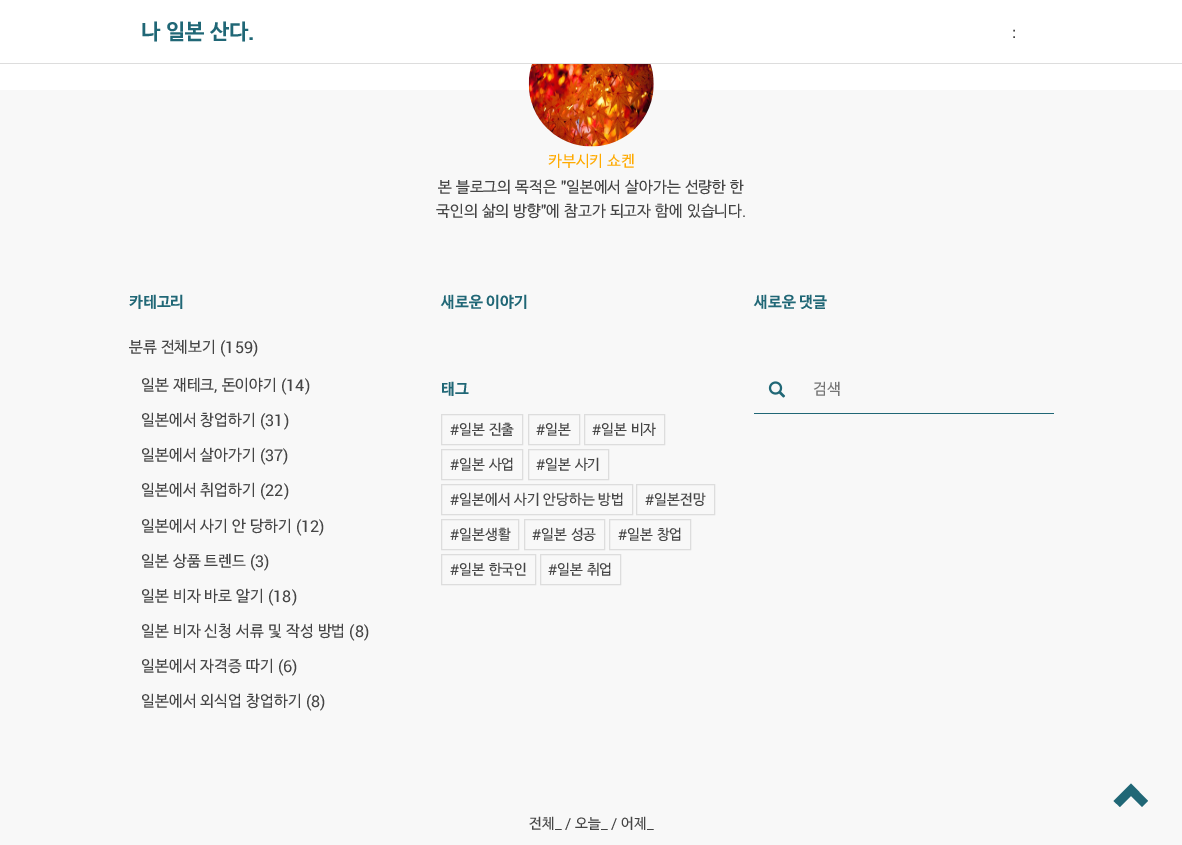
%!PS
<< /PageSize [1182 845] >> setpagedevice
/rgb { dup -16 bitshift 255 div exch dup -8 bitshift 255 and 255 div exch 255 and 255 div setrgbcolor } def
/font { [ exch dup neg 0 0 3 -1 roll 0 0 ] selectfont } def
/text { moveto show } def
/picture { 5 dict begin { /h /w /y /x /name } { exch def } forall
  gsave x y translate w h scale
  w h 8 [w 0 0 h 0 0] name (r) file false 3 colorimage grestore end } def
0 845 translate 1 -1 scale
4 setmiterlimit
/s1 { /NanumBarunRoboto-Bold 22.5 font 16#206776 rgb } def
/s2 { /WenQuanYiZenHei-Medium 16.25 font 16#454545 rgb } def
/s3 { /NanumBarunRoboto-Regular 16.25 font 16#FFAA00 rgb } def
/s4 { /NanumBarunRoboto-Regular 16.25 font 16#454545 rgb } def
/s5 { /NanumBarunRoboto-Bold 16.25 font 16#206776 rgb } def
/s6 { /NanumBarunRoboto-Regular 15 font 16#454545 rgb } def
/s7 { /NanumBarunRoboto-Regular 16.25 font 16#757575 rgb } def
16#FFFFFF rgb
0 0 1182 845 rectfill
16#DDDDDD rgb
0 63 1182 1 rectfill
s1
(나 일본 산다.) 141 40 text
s2
(：) 1006 38 text
16#F8F8F8 rgb
0 90 1182 755 rectfill
(pic1.raw) 528 64 126 83 picture
s3
(카부시키 쇼켄) 548 167 text
s4
(본 블로그의 목적은 "일본에서 살아가는 선량한 한) 438 193 text
(국인의 삶의 방향"에 참고가 되고자 함에 있습니다.) 436 217 text
s5
(카테고리) 129 308 text
s4
(분류 전체보기 \(159\)) 129 353 text
(일본 재테크, 돈이야기 \(14\)) 141 391 text
(일본에서 창업하기 \(31\)) 141 426 text
(일본에서 살아가기 \(37\)) 141 461 text
(일본에서 취업하기 \(22\)) 141 496 text
(일본에서 사기 안 당하기 \(12\)) 141 532 text
(일본 상품 트렌드 \(3\)) 141 567 text
(일본 비자 바로 알기 \(18\)) 141 602 text
(일본 비자 신청 서류 및 작성 방법 \(8\)) 141 637 text
(일본에서 자격증 따기 \(6\)) 141 672 text
(일본에서 외식업 창업하기 \(8\)) 141 707 text
s5
(새로운 이야기) 441 308 text
(태그) 441 395 text
16#DDDDDD rgb
441.5 414.5 81 30 rectstroke
s6
(#일본 진출) 450 435 text
16#DDDDDD rgb
528.5 414.5 51 30 rectstroke
s6
(#일본) 536 435 text
16#DDDDDD rgb
584.5 414.5 80 30 rectstroke
s6
(#일본 비자) 592 435 text
16#DDDDDD rgb
441.5 449.5 81 30 rectstroke
s6
(#일본 사업) 450 470 text
16#DDDDDD rgb
528.5 449.5 80 30 rectstroke
s6
(#일본 사기) 536 470 text
16#DDDDDD rgb
441.5 484.5 191 30 rectstroke
s6
(#일본에서 사기 안당하는 방법) 450 505 text
16#DDDDDD rgb
636.5 484.5 78 30 rectstroke
s6
(#일본전망) 645 505 text
16#DDDDDD rgb
441.5 519.5 77 30 rectstroke
s6
(#일본생활) 450 540 text
16#DDDDDD rgb
524.5 519.5 80 30 rectstroke
s6
(#일본 성공) 532 540 text
16#DDDDDD rgb
609.5 519.5 81 30 rectstroke
s6
(#일본 창업) 618 540 text
16#DDDDDD rgb
441.5 554.5 94 30 rectstroke
s6
(#일본 한국인) 450 575 text
16#DDDDDD rgb
540.5 554.5 80 30 rectstroke
s6
(#일본 취업) 548 575 text
s5
(새로운 댓글) 754 308 text
754 413 300 1 rectfill
(pic2.raw) 768 381 18 17 picture
s7
(검색) 813 395 text
16#206776 rgb
1148 801 moveto 1142 807 lineto 1131 796 lineto 1120 807 lineto 1113.5 801 lineto 1131 783.5 lineto closepath fill
s6
(전체_ / 오늘_ / 어제_) 529 829 text
showpage
